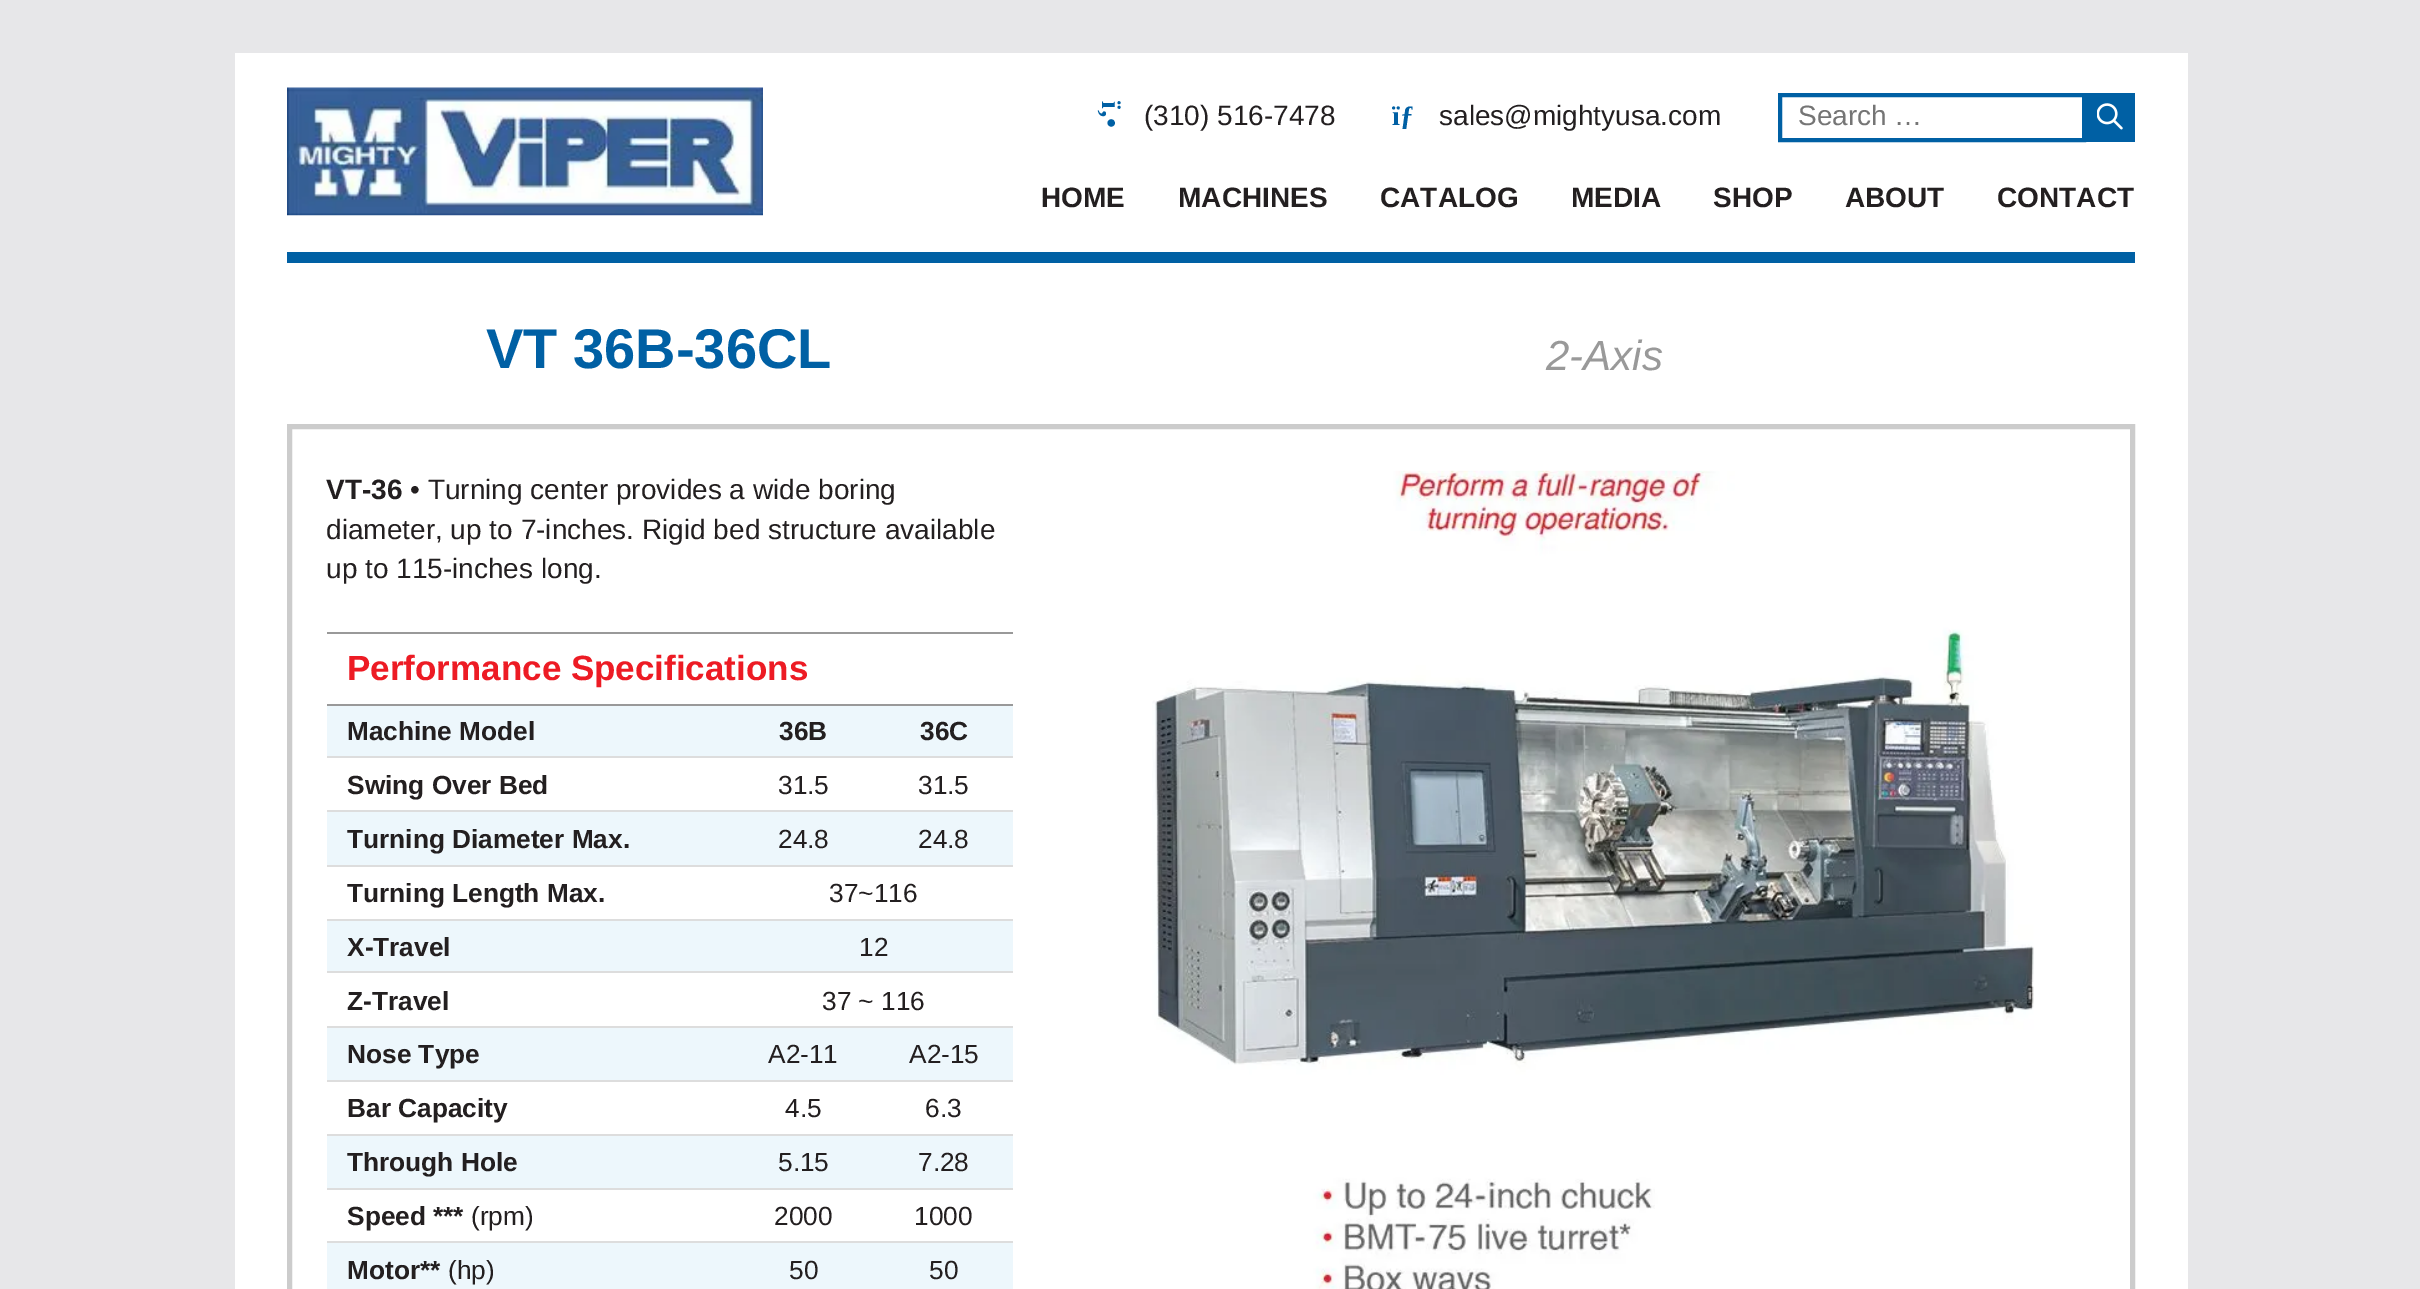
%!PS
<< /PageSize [2420 1289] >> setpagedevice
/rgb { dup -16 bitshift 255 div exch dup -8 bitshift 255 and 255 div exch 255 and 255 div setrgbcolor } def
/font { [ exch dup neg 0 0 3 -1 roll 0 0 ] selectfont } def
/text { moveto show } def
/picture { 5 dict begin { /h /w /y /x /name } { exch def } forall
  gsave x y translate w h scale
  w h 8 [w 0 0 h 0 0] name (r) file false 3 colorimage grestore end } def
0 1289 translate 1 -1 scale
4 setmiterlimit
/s1 { /LiberationSans-Regular 28 font 16#231F20 rgb } def
/s2 { /LiberationSerif-Bold 28 font 16#0060A4 rgb } def
/s3 { /LiberationSans-Regular 28 font 16#757575 rgb } def
/s4 { /LiberationSans-Bold 28 font 16#231F20 rgb } def
/s5 { /LiberationSans-Bold 56 font 16#0060A4 rgb } def
/s6 { /LiberationSans-Italic 42 font 16#999999 rgb } def
/s7 { /LiberationSans-Bold 35 font 16#ED1B24 rgb } def
/s8 { /LiberationSans-Bold 26.25 font 16#231F20 rgb } def
/s9 { /LiberationSans-Regular 26.25 font 16#231F20 rgb } def
16#E7E7E9 rgb
0 0 2420 1289 rectfill
16#FFFFFF rgb
235 53 1953 1236 rectfill
16#0060A4 rgb
287 252 1848 11 rectfill
(pic1.raw) 287 87 476 129 picture
/LiberationSerif-Bold 28 font
gsave 1102 101 translate 90 rotate 0 0 moveto (ï‚•) show grestore
s1
(\(310\) 516-7478) 1144 125 text
s2
(ïƒ) 1392 125 text
s1
(sales@mightyusa.com) 1439 125 text
16#0060A4 rgb
4 setlinewidth
1780 95 304 45 rectstroke
s3
(Search …) 1798 125 text
16#0060A4 rgb
2086 93 49 49 rectfill
(pic2.raw) 2097 103 26 27 picture
s4
(HOME) 1041 207 text
(MACHINES) 1178 207 text
(CATALOG) 1380 207 text
(MEDIA) 1571 207 text
(SHOP) 1713 207 text
(ABOUT) 1845 207 text
(CONTACT) 1997 207 text
s5
(VT 36B-36CL) 486 368 text
s6
(2-Axis) 1546 370 text
16#CCCCCC rgb
5 setlinewidth
289.5 426.5 1843 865 rectstroke
s4
(VT-36) 326 499 text
s1
(• Turning center provides a wide boring) 410 499 text
(diameter, up to 7-inches. Rigid bed structure available) 326 539 text
(up to 115-inches long.) 326 578 text
16#999999 rgb
327 632 686 2 rectfill
327 704 686 2 rectfill
s7
(Performance Specifications) 347 680 text
16#EDF7FC rgb
327 706 686 50 rectfill
s8
(Machine Model) 347 740 text
(36B) 779 740 text
(36C) 920 740 text
(Swing Over Bed) 347 794 text
s9
(31.5) 778 794 text
16#DDDDDD rgb
327 756 686 2 rectfill
s9
(31.5) 918 794 text
16#EDF7FC rgb
327 812 686 53 rectfill
s8
(Turning Diameter Max.) 347 848 text
s9
(24.8) 778 848 text
16#DDDDDD rgb
327 810 686 2 rectfill
s9
(24.8) 918 848 text
s8
(Turning Length Max.) 347 902 text
16#DDDDDD rgb
327 865 686 2 rectfill
s9
(37~116) 829 902 text
16#EDF7FC rgb
327 921 686 50 rectfill
s8
(X-Travel) 347 956 text
16#DDDDDD rgb
327 919 686 2 rectfill
s9
(12) 859 956 text
s8
(Z-Travel) 347 1010 text
16#DDDDDD rgb
327 971 686 2 rectfill
s9
(37 ~ 116) 822 1010 text
16#EDF7FC rgb
327 1028 686 52 rectfill
s8
(Nose Type) 347 1063 text
s9
(A2-11) 768 1063 text
16#DDDDDD rgb
327 1026 686 2 rectfill
s9
(A2-15) 909 1063 text
s8
(Bar Capacity) 347 1117 text
s9
(4.5) 785 1117 text
16#DDDDDD rgb
327 1080 686 2 rectfill
s9
(6.3) 925 1117 text
16#EDF7FC rgb
327 1136 686 52 rectfill
s8
(Through Hole) 347 1171 text
s9
(5.15) 778 1171 text
16#DDDDDD rgb
327 1134 686 2 rectfill
s9
(7.28) 918 1171 text
s8
(Speed ***) 347 1225 text
s9
(\(rpm\)) 471 1225 text
(2000) 774 1225 text
16#DDDDDD rgb
327 1188 686 2 rectfill
s9
(1000) 914 1225 text
16#EDF7FC rgb
327 1243 686 46 rectfill
s8
(Motor**) 347 1279 text
s9
(\(hp\)) 448 1279 text
(50) 789 1279 text
16#DDDDDD rgb
327 1241 686 2 rectfill
s9
(50) 929 1279 text
(pic3.raw) 1152 470 882 819 picture
showpage
